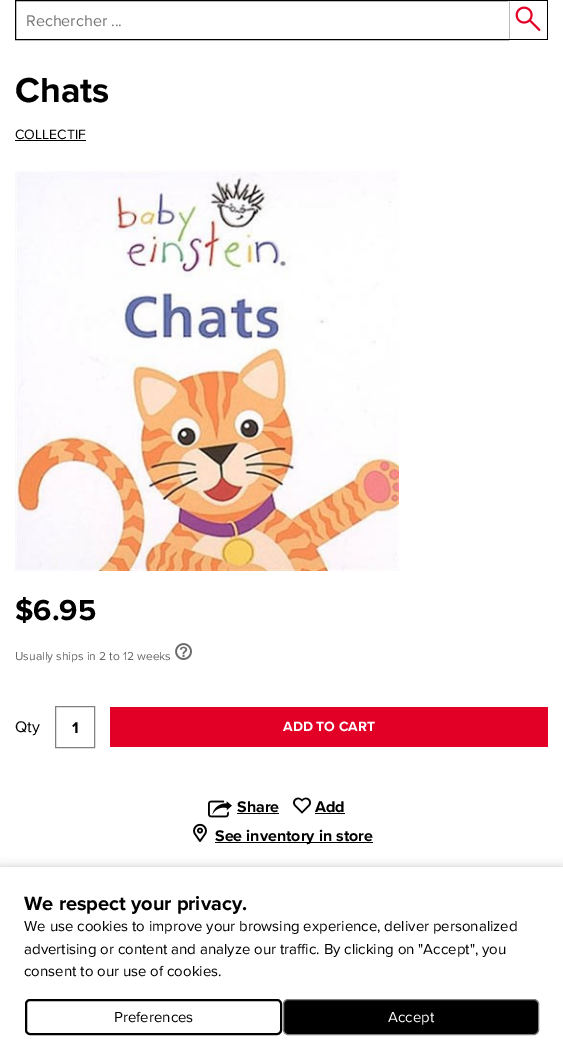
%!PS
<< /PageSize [563 1059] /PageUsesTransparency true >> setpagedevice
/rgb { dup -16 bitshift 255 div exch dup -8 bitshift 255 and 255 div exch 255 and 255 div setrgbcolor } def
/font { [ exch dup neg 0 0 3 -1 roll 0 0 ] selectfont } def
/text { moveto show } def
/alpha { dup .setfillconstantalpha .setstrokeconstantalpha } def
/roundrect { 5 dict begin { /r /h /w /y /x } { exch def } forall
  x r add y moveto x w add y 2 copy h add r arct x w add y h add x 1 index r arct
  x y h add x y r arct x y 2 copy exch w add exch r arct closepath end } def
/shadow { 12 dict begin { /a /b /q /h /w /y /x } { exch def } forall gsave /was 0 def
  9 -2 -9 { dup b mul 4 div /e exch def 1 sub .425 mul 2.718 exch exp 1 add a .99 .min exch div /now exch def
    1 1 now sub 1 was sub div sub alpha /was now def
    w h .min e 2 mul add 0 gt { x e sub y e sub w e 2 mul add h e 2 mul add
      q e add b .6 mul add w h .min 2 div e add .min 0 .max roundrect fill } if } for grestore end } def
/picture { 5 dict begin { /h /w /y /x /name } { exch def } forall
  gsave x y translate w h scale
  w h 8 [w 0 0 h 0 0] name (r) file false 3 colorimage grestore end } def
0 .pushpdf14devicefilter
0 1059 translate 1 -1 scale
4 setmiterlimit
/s1 { /ProximaNova-Regular 16 font 16#757575 rgb } def
/s2 { /ProximaNova-Bold 36 font 16#000000 rgb } def
/s3 { /ProximaNova-Regular 14 font 16#000000 rgb } def
/s4 { /ProximaNova-Bold 30 font 16#000000 rgb } def
/s5 { /ProximaNova-Regular 12 font 16#666666 rgb } def
/s6 { /ProximaNova-Regular 16 font 16#000000 rgb } def
/s7 { /ProximaNova-Bold 16 font 16#000000 rgb } def
/s8 { /ProximaNova-Bold 14 font 16#FFFFFF rgb } def
/s9 { /ProximaNova-Bold 20 font 16#000000 rgb } def
/s10 { /ProximaNova-Regular 15 font 16#000000 rgb } def
/s11 { /ProximaNova-Regular 15 font 16#FFFFFF rgb } def
16#FFFFFF rgb
0 0 563 1059 rectfill
16#000000 rgb
15.5 0.5 493 39 rectstroke
s1
(Rechercher ...) 26 26 text
16#FFFFFF rgb
508 1 1 38 rectfill
16#000000 rgb
508 0 40 1 rectfill
547 0 1 40 rectfill
508 39 40 1 rectfill
(pic1.raw) 515 6 26 25 picture
s2
(Chats) 15 102 text
s3
(COLLECTIF) 15 139 text
15 140 71 1 rectfill
(pic2.raw) 15 171 384 400 picture
s4
($6.95) 15 620 text
s5
(Usually ships in 2 to 12 weeks) 15 660 text
(pic3.raw) 175 643 17 17 picture
s6
(Qty) 15 732 text
16#808080 rgb
55.5 706.5 39 41 rectstroke
s7
(1) 72 733 text
16#E20027 rgb
110 707 438 40 rectfill
s8
(ADD TO CART) 283 731 text
(pic4.raw) 208 800 24 18 picture
s7
(Share) 237 812 text
237 813 42 1 rectfill
(pic5.raw) 293 797 18 17 picture
(Add) 315 812 text
315 813 30 1 rectfill
(pic6.raw) 193 823 14 19 picture
215 842 158 1 rectfill
(See inventory in store) 215 841 text
0 867 563 192 0 5 0.2 shadow
16#FFFFFF rgb
0 867 563 192 rectfill
s9
(We respect your privacy.) 24 910 text
s10
(We use cookies to improve your browsing experience, deliver personalized) 24 931 text
(advertising or content and analyze our traffic. By clicking on "Accept", you) 24 954 text
(consent to our use of cookies.) 24 976 text
2 setlinewidth
26 1000 255 34 4 roundrect stroke
(Preferences) 114 1022 text
283.5 999.5 255 35 4.5 roundrect gsave fill grestore
16#808080 rgb
1 setlinewidth
stroke
s11
(Accept) 388 1022 text
.poppdf14devicefilter showpage
